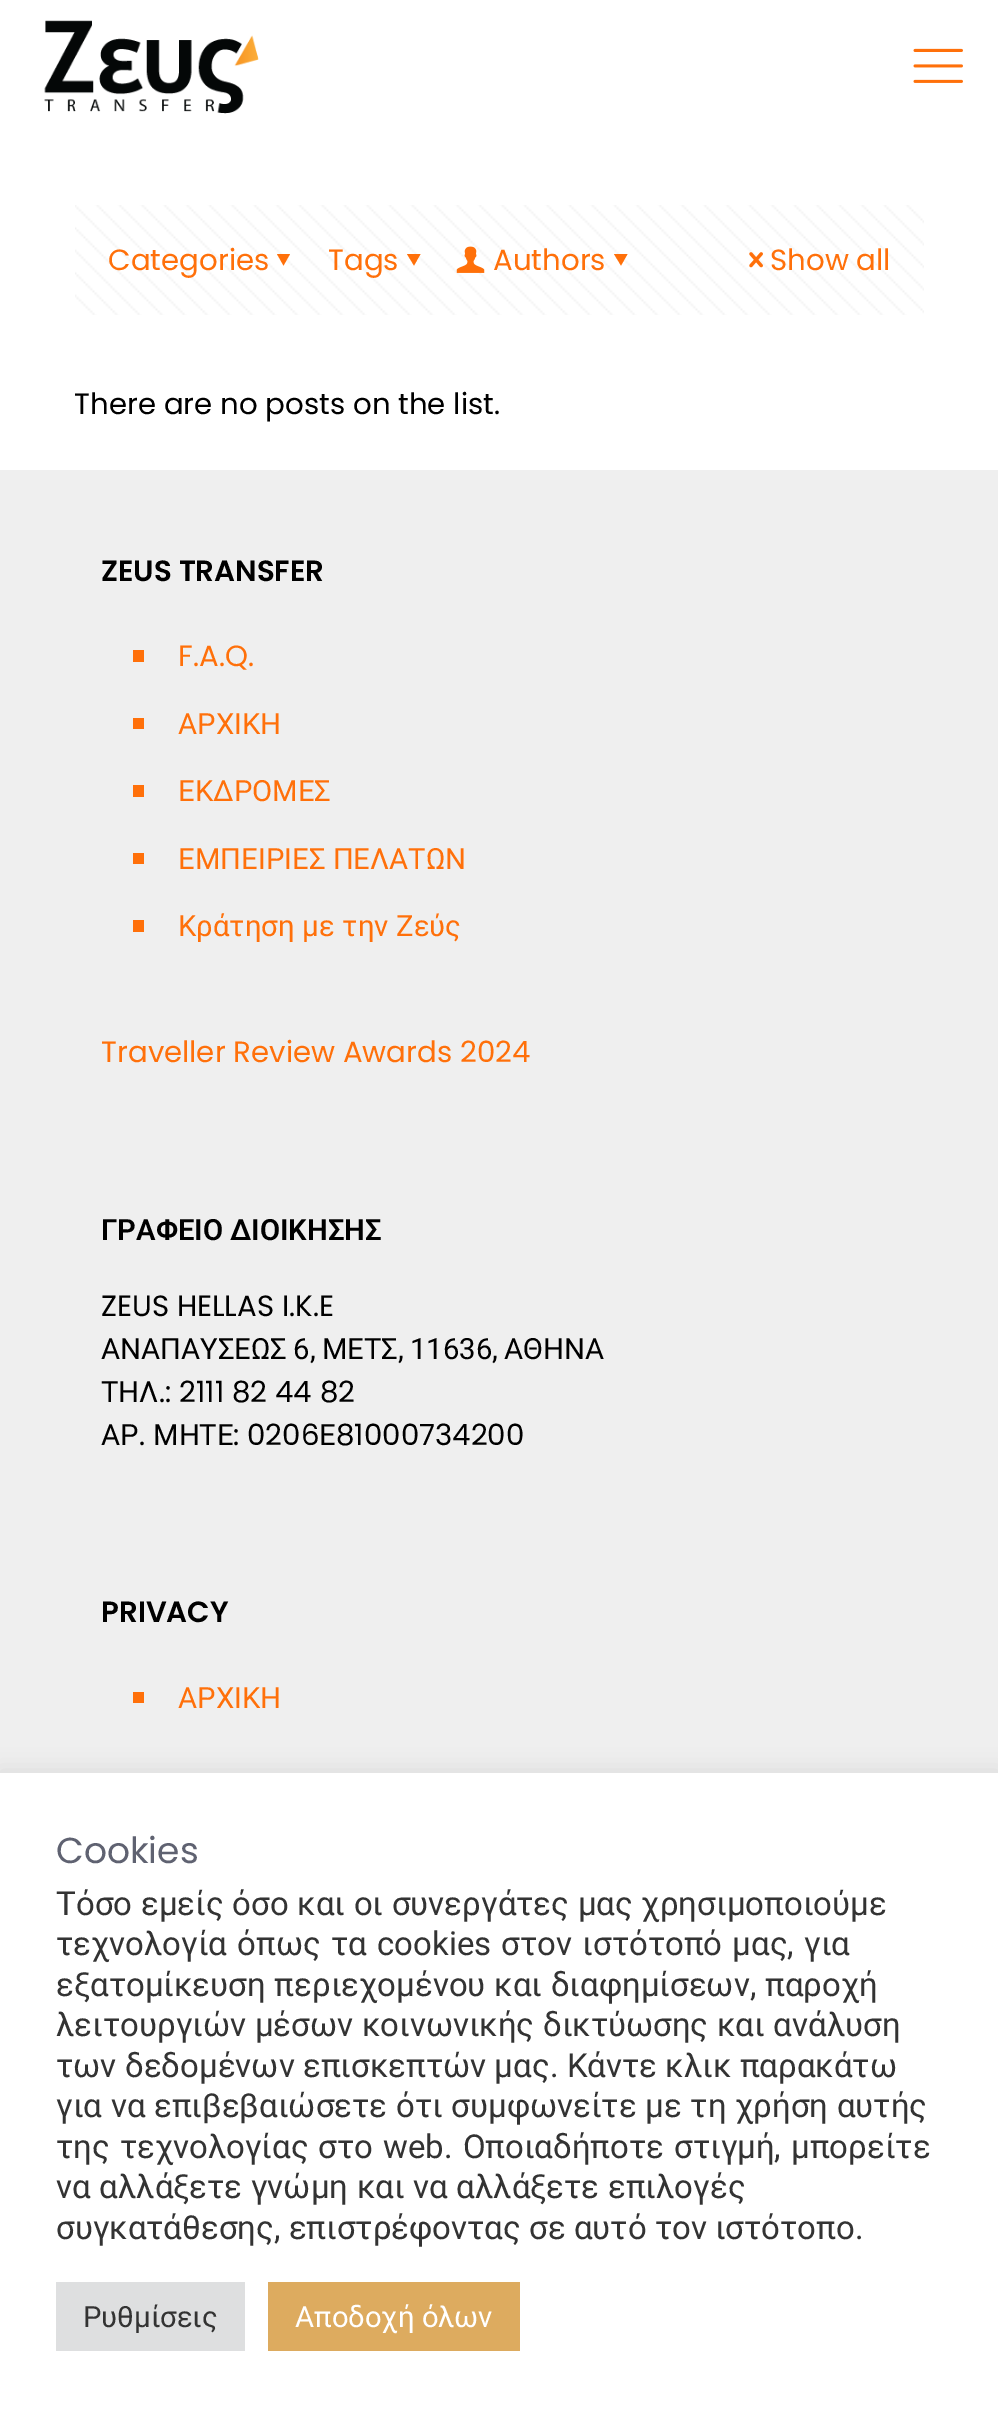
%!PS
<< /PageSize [998 2417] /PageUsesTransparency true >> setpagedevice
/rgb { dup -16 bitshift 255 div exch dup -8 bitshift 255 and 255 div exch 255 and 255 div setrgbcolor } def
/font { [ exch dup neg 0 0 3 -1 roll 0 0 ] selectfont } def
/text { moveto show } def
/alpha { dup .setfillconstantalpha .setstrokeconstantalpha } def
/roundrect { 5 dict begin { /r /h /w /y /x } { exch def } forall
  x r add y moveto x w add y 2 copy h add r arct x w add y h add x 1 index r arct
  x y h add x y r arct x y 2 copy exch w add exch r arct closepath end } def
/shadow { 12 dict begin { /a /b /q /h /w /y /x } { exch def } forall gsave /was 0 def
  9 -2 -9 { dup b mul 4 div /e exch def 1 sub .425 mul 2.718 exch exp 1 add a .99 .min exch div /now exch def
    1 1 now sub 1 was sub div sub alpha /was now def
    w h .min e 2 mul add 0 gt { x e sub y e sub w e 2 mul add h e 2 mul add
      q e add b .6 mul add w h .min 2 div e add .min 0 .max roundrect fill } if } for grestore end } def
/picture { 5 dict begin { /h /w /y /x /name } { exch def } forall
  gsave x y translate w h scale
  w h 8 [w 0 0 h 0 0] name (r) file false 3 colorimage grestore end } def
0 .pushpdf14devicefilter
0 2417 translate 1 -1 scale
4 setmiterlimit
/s1 { /Poppins-Regular 29.25 font 16#FF700A rgb } def
/s2 { /Poppins-Regular 29.25 font 16#000000 rgb } def
/s3 { /Poppins-SemiBold 29.25 font 16#000000 rgb } def
/s4 { /Roboto-Regular 29.25 font 16#FF700A rgb } def
/s5 { /Roboto-SemiBold 29.25 font 16#000000 rgb } def
/s6 { /Roboto-Regular 29.25 font 16#000000 rgb } def
/s7 { /Poppins-Regular 36 font 16#5F6271 rgb } def
/s8 { /Roboto-Regular 33 font 16#333333 rgb } def
/s9 { /Roboto-Regular 29.25 font 16#333333 rgb } def
/s10 { /Roboto-Regular 29.25 font 16#FFFFFF rgb } def
16#FFFFFF rgb
0 0 998 2417 rectfill
(pic1.raw) 44 20 215 94 picture
(pic2.raw) 913 48 50 35 picture
(pic3.raw) 75 205 849 110 picture
s1
(Categories) 108 270 text
290 254 moveto 283.5 265.5 lineto 277 254 lineto closepath fill
(Tags) 328 270 text
420.5 254 moveto 414 265.5 lineto 407 254 lineto closepath fill
(pic4.raw) 456 246 29 27 picture
(Authors) 493 270 text
627.5 254 moveto 621 265.5 lineto 614 254 lineto closepath fill
(pic5.raw) 749 252 14 16 picture
(Show all) 770 270 text
s2
(There are no posts on the list.) 74 414 text
16#EFEFEF rgb
0 470 998 1303 rectfill
s3
(ZEUS TRANSFER) 101 581 text
16#FF700A rgb
133 650 11 12 rectfill
s1
(F.A.Q.) 178 666 text
133 718 11 11 rectfill
s4
(ΑΡΧΙΚΗ) 178 734 text
133 785 11 12 rectfill
(ΕΚΔΡΟΜΕΣ) 178 801 text
133 853 11 11 rectfill
(ΕΜΠΕΙΡΙΕΣ ΠΕΛΑΤΩΝ) 178 869 text
133 920 11 12 rectfill
178 936 moveto 0.5 0 32 (Κράτηση με την Ζεύς) widthshow
s1
(Traveller Review Awards 2024) 101 1062 text
s5
(ΓΡΑΦΕΙΟ ΔΙΟΙΚΗΣΗΣ) 101 1240 text
s2
(ZEUS HELLAS I.K.E) 101 1316 text
/Roboto-Regular 29.25 font
101 1359 moveto -1 0 32 (ΑΝΑΠΑΥΣΕΩΣ 6, ΜΕΤΣ, 11636, ΑΘΗΝΑ) widthshow
(ΤΗΛ) 101 1402 text
s2
(.: 2111 82 44 82) 159 1402 text
s6
(ΑΡ) 101 1445 text
s2
(.) 139 1445 text
s6
(ΜΗΤΕ) 153 1445 text
s2
(: 0206) 233 1445 text
s6
(Ε) 319 1445 text
s2
(81000734200) 336 1445 text
s3
(PRIVACY) 101 1622 text
16#FF700A rgb
133 1692 11 11 rectfill
s4
(ΑΡΧΙΚΗ) 178 1708 text
16#ACABAB rgb
0 1771 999 646 0 11 0.3 shadow
16#FFFFFF rgb
0 1773 998 644 rectfill
s7
(Cookies) 56 1863 text
/Roboto-Regular 33 font
16#333333 rgb
56 1915 moveto 0.5 0 32 (Τόσο εμείς όσο και οι συνεργάτες μας χρησιμοποιούμε) widthshow
56 1955 moveto 2 0 32 (τεχνολογία όπως τα cookies στον ιστότοπό μας, για) widthshow
56 1996 moveto 0.5 0 32 (εξατομίκευση περιεχομένου και διαφημίσεων, παροχή) widthshow
56 2036 moveto 0.5 0 32 (λειτουργιών μέσων κοινωνικής δικτύωσης και ανάλυση) widthshow
56 2077 moveto 0.25 0 32 (των δεδομένων επισκεπτών μας. Κάντε κλικ παρακάτω) widthshow
56 2117 moveto 0.5 0 32 (για να επιβεβαιώσετε ότι συμφωνείτε με τη χρήση αυτής) widthshow
56 2158 moveto 1.75 0 32 (της τεχνολογίας στο web. Οποιαδήποτε στιγμή, μπορείτε) widthshow
56 2198 moveto 0.5 0 32 (να αλλάξετε γνώμη και να αλλάξετε επιλογές) widthshow
(συγκατάθεσης, επιστρέφοντας σε αυτό τον ιστότοπο.) 56 2239 text
16#DEDFE0 rgb
56 2282 189 69 rectfill
s9
(Ρυθμίσεις) 83 2327 text
16#DDAB5F rgb
268 2282 252 69 rectfill
s10
(Αποδοχή όλων) 295 2327 text
.poppdf14devicefilter showpage
